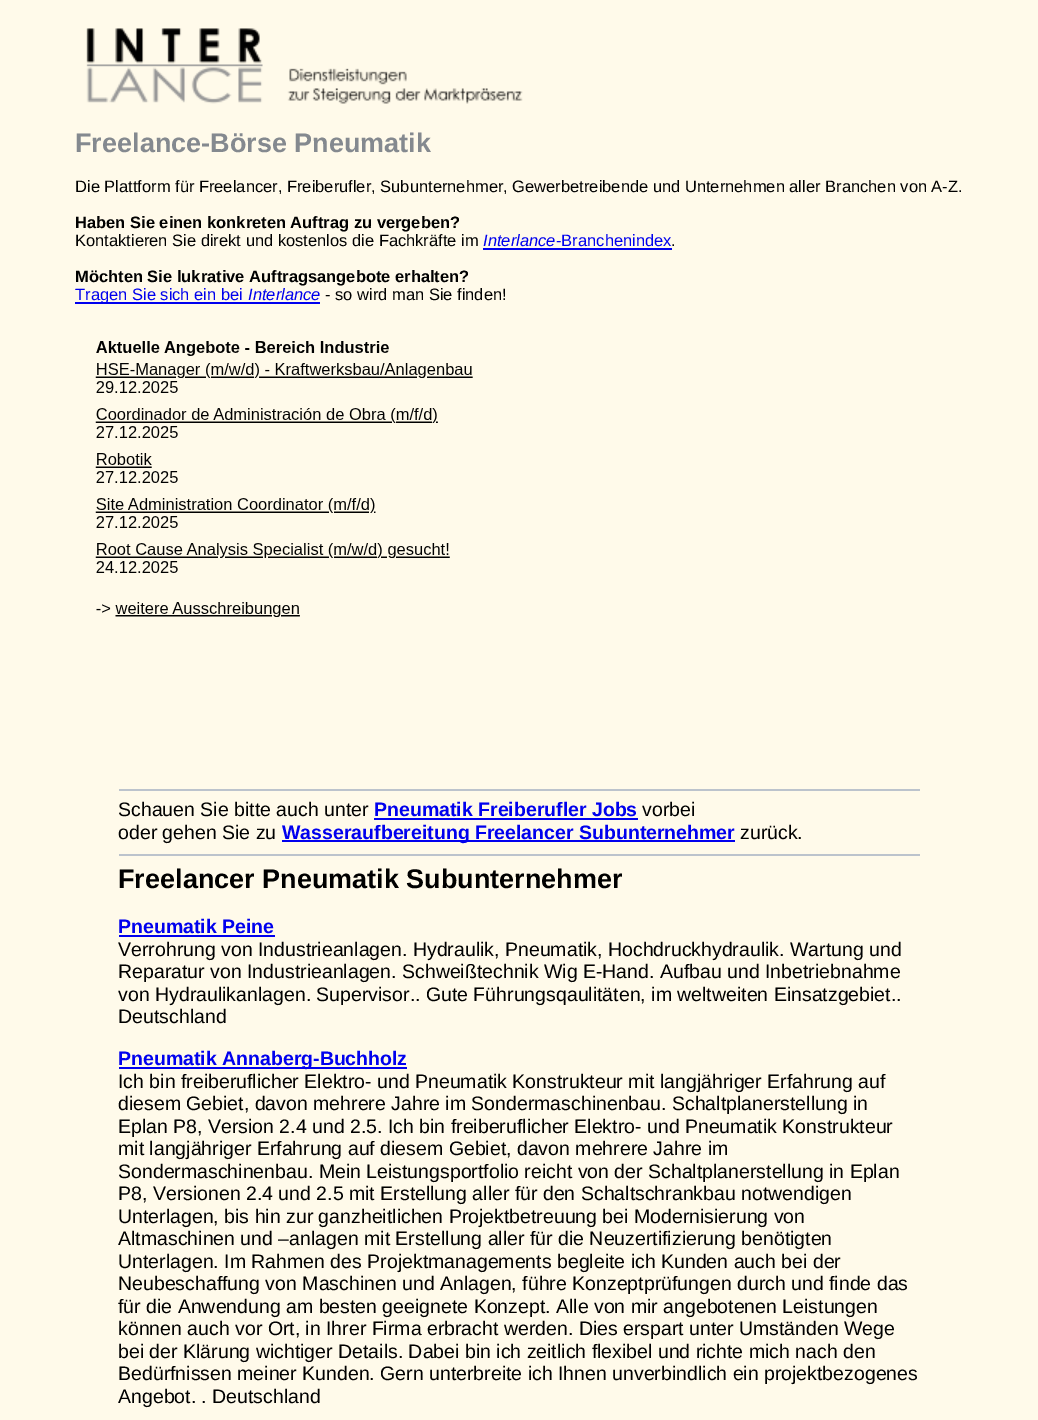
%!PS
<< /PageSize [1038 1420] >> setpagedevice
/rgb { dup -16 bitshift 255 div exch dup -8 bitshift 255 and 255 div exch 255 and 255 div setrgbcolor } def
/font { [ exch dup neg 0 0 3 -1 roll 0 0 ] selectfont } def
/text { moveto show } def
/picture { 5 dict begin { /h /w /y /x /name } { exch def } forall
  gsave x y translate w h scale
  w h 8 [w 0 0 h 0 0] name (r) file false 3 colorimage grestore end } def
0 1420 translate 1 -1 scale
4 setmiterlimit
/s1 { /LiberationSans-Bold 27 font 16#84898F rgb } def
/s2 { /LiberationSans-Regular 16.5 font 16#000000 rgb } def
/s3 { /LiberationSans-Bold 16.5 font 16#000000 rgb } def
/s4 { /LiberationSans-Italic 16.5 font 16#0000EE rgb } def
/s5 { /LiberationSans-Regular 16.5 font 16#0000EE rgb } def
/s6 { /LiberationSans-Regular 19.5 font 16#000000 rgb } def
/s7 { /LiberationSans-Bold 19.5 font 16#0000EE rgb } def
/s8 { /LiberationSans-Bold 27 font 16#000000 rgb } def
16#FFFAEA rgb
0 0 1038 1420 rectfill
(pic1.raw) 86 28 177 76 picture
(pic2.raw) 287 68 236 36 picture
s1
(Freelance-Börse Pneumatik) 75 152 text
s2
(Die Plattform für Freelancer, Freiberufler, Subunternehmer, Gewerbetreibende und Unternehmen aller Branchen von A-Z.) 75 192 text
s3
(Haben Sie einen konkreten Auftrag zu vergeben?) 75 228 text
s2
(Kontaktieren Sie direkt und kostenlos die Fachkräfte im) 75 246 text
s4
(Interlance) 483 246 text
483 248 189 2 rectfill
s5
(-Branchenindex) 556 246 text
s2
(.) 671 246 text
s3
(Möchten Sie lukrative Auftragsangebote erhalten?) 75 282 text
16#0000EE rgb
75 302 245 2 rectfill
s5
(Tragen Sie sich ein bei) 75 300 text
s4
(Interlance) 248 300 text
s2
(- so wird man Sie finden!) 325 300 text
(pic3.raw) 95 341 378 276 picture
16#BCC3CC rgb
119 789 801 2 rectfill
s6
(Schauen Sie bitte auch unter) 118 816 text
s7
(Pneumatik Freiberufler Jobs) 374 816 text
374 818 264 2 rectfill
s6
(vorbei) 642 816 text
(oder gehen Sie zu) 118 839 text
16#0000EE rgb
282 840 453 2 rectfill
s7
(Wasseraufbereitung Freelancer Subunternehmer) 282 839 text
s6
(zurück.) 740 839 text
16#BCC3CC rgb
119 854 801 2 rectfill
s8
(Freelancer Pneumatik Subunternehmer) 118 888 text
s7
(Pneumatik Peine) 118 933 text
119 935 156 2 rectfill
s6
(Verrohrung von Industrieanlagen. Hydraulik, Pneumatik, Hochdruckhydraulik. Wartung und) 118 956 text
(Reparatur von Industrieanlagen. Schweißtechnik Wig E-Hand. Aufbau und Inbetriebnahme) 118 978 text
(von Hydraulikanlagen. Supervisor.. Gute Führungsqaulitäten, im weltweiten Einsatzgebiet..) 118 1001 text
(Deutschland) 118 1023 text
16#0000EE rgb
119 1067 288 2 rectfill
s7
(Pneumatik Annaberg-Buchholz) 118 1065 text
s6
(Ich bin freiberuflicher Elektro- und Pneumatik Konstrukteur mit langjähriger Erfahrung auf) 118 1088 text
(diesem Gebiet, davon mehrere Jahre im Sondermaschinenbau. Schaltplanerstellung in) 118 1110 text
(Eplan P8, Version 2.4 und 2.5. Ich bin freiberuflicher Elektro- und Pneumatik Konstrukteur) 118 1133 text
(mit langjähriger Erfahrung auf diesem Gebiet, davon mehrere Jahre im) 118 1155 text
(Sondermaschinenbau. Mein Leistungsportfolio reicht von der Schaltplanerstellung in Eplan) 118 1178 text
(P8, Versionen 2.4 und 2.5 mit Erstellung aller für den Schaltschrankbau notwendigen) 118 1200 text
(Unterlagen, bis hin zur ganzheitlichen Projektbetreuung bei Modernisierung von) 118 1223 text
(Altmaschinen und –anlagen mit Erstellung aller für die Neuzertifizierung benötigten) 118 1245 text
(Unterlagen. Im Rahmen des Projektmanagements begleite ich Kunden auch bei der) 118 1268 text
(Neubeschaffung von Maschinen und Anlagen, führe Konzeptprüfungen durch und finde das) 118 1290 text
(für die Anwendung am besten geeignete Konzept. Alle von mir angebotenen Leistungen) 118 1313 text
(können auch vor Ort, in Ihrer Firma erbracht werden. Dies erspart unter Umständen Wege) 118 1335 text
(bei der Klärung wichtiger Details. Dabei bin ich zeitlich flexibel und richte mich nach den) 118 1358 text
(Bedürfnissen meiner Kunden. Gern unterbreite ich Ihnen unverbindlich ein projektbezogenes) 118 1380 text
(Angebot. . Deutschland) 118 1403 text
showpage
